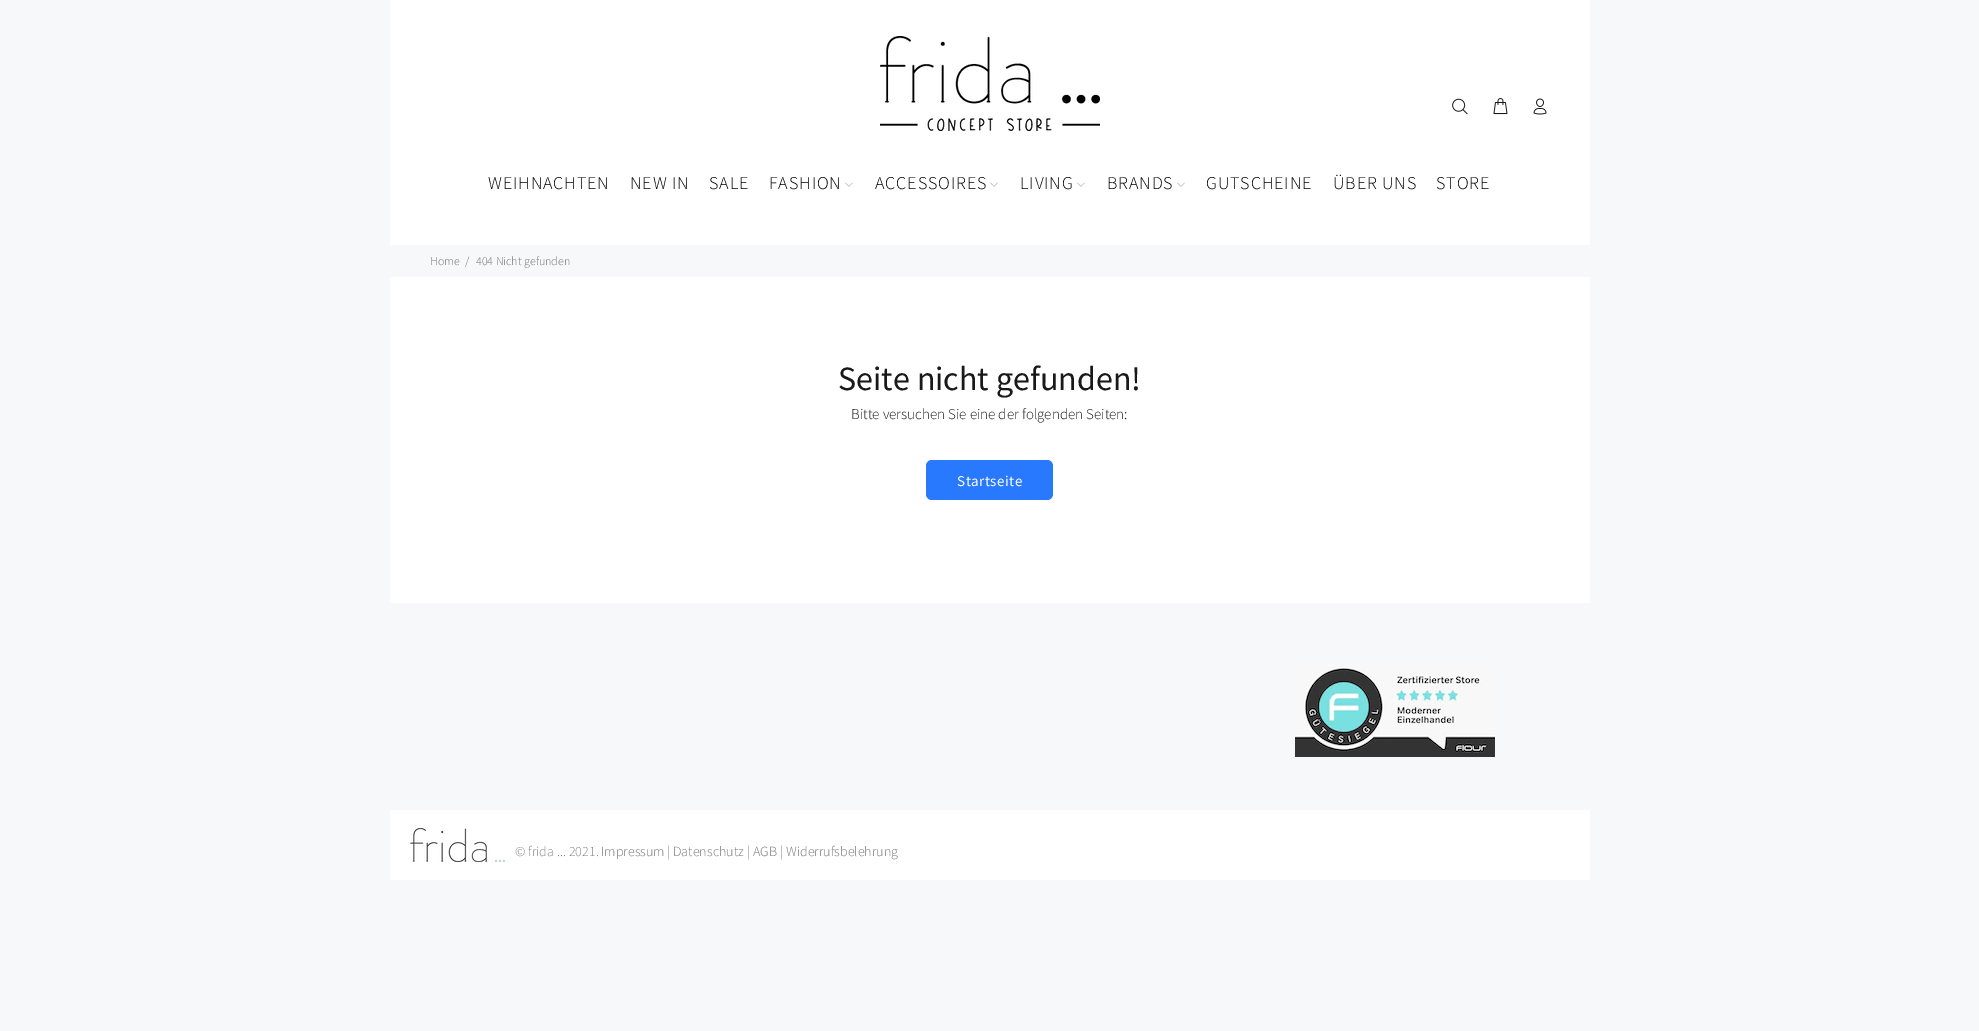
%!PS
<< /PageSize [1979 1031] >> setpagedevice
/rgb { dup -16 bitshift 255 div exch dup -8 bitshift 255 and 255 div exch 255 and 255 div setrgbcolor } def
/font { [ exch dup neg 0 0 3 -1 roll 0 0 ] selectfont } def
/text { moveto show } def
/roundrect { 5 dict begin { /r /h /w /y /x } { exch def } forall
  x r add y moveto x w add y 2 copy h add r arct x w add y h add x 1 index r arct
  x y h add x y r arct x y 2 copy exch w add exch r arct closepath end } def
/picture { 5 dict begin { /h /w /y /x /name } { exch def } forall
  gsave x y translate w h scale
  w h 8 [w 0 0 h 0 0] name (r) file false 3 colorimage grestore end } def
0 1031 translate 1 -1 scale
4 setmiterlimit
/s1 { /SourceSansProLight-Light 12 font 16#777777 rgb } def
/s2 { /SourceSansPro-Regular 34 font 16#191919 rgb } def
/s3 { /SourceSansProLight-Light 15 font 16#191919 rgb } def
/s4 { /SourceSansProLight-Light 14 font 16#888888 rgb } def
/s5 { /SourceSansProLight-Light 14 font 16#777777 rgb } def
16#F7F8FA rgb
0 0 1979 1031 rectfill
16#FFFFFF rgb
390 0 1200 880 rectfill
(pic1.raw) 880 36 220 95 picture
(pic2.raw) 1452 98 16 17 picture
(pic3.raw) 1493 98 15 17 picture
(pic4.raw) 1533 98 14 17 picture
/SourceSansProLight-Light 18 font
16#000000 rgb
488 189 moveto 0.9 0 (WEIHNACHTEN) ashow
630 189 moveto 0.9 0 (NEW IN) ashow
709 189 moveto 0.9 0 (SALE) ashow
769 189 moveto 0.9 0 (FASHION) ashow
(pic5.raw) 845 182 8 5 picture
875 189 moveto 0.9 0 (ACCESSOIRES) ashow
(pic5.raw) 990 182 8 5 picture
1020 189 moveto 0.9 0 (LIVING) ashow
(pic5.raw) 1077 182 8 5 picture
1107 189 moveto 0.9 0 (BRANDS) ashow
(pic5.raw) 1177 182 8 5 picture
1206 189 moveto 0.9 0 (GUTSCHEINE) ashow
1333 189 moveto 0.9 0 (ÜBER UNS) ashow
1436 189 moveto 0.9 0 (STORE) ashow
16#F7F8FA rgb
390 245 1200 32 rectfill
s1
(Home) 430 265 text
(/) 465 265 text
(404 Nicht gefunden) 476 265 text
s2
(Seite nicht gefunden!) 838 390 text
s3
(Bitte versuchen Sie eine der folgenden Seiten:) 851 419 text
16#2879FE rgb
926 460 127 40 6 roundrect fill
/SourceSansPro-Regular 15 font
16#FFFFFF rgb
957 486 moveto 0.5 0 (Startseite) ashow
16#F7F8FA rgb
390 603 1200 207 rectfill
(pic6.raw) 1295 665 200 92 picture
(pic7.raw) 410 828 95 34 picture
s4
(© frida ... 2021.) 515 856 text
s5
(Impressum) 601 856 text
s4
(|) 667 856 text
s5
(Datenschutz) 673 856 text
s4
(|) 747 856 text
s5
(AGB) 753 856 text
s4
(|) 780 856 text
s5
(Widerrufsbelehrung) 786 856 text
showpage
